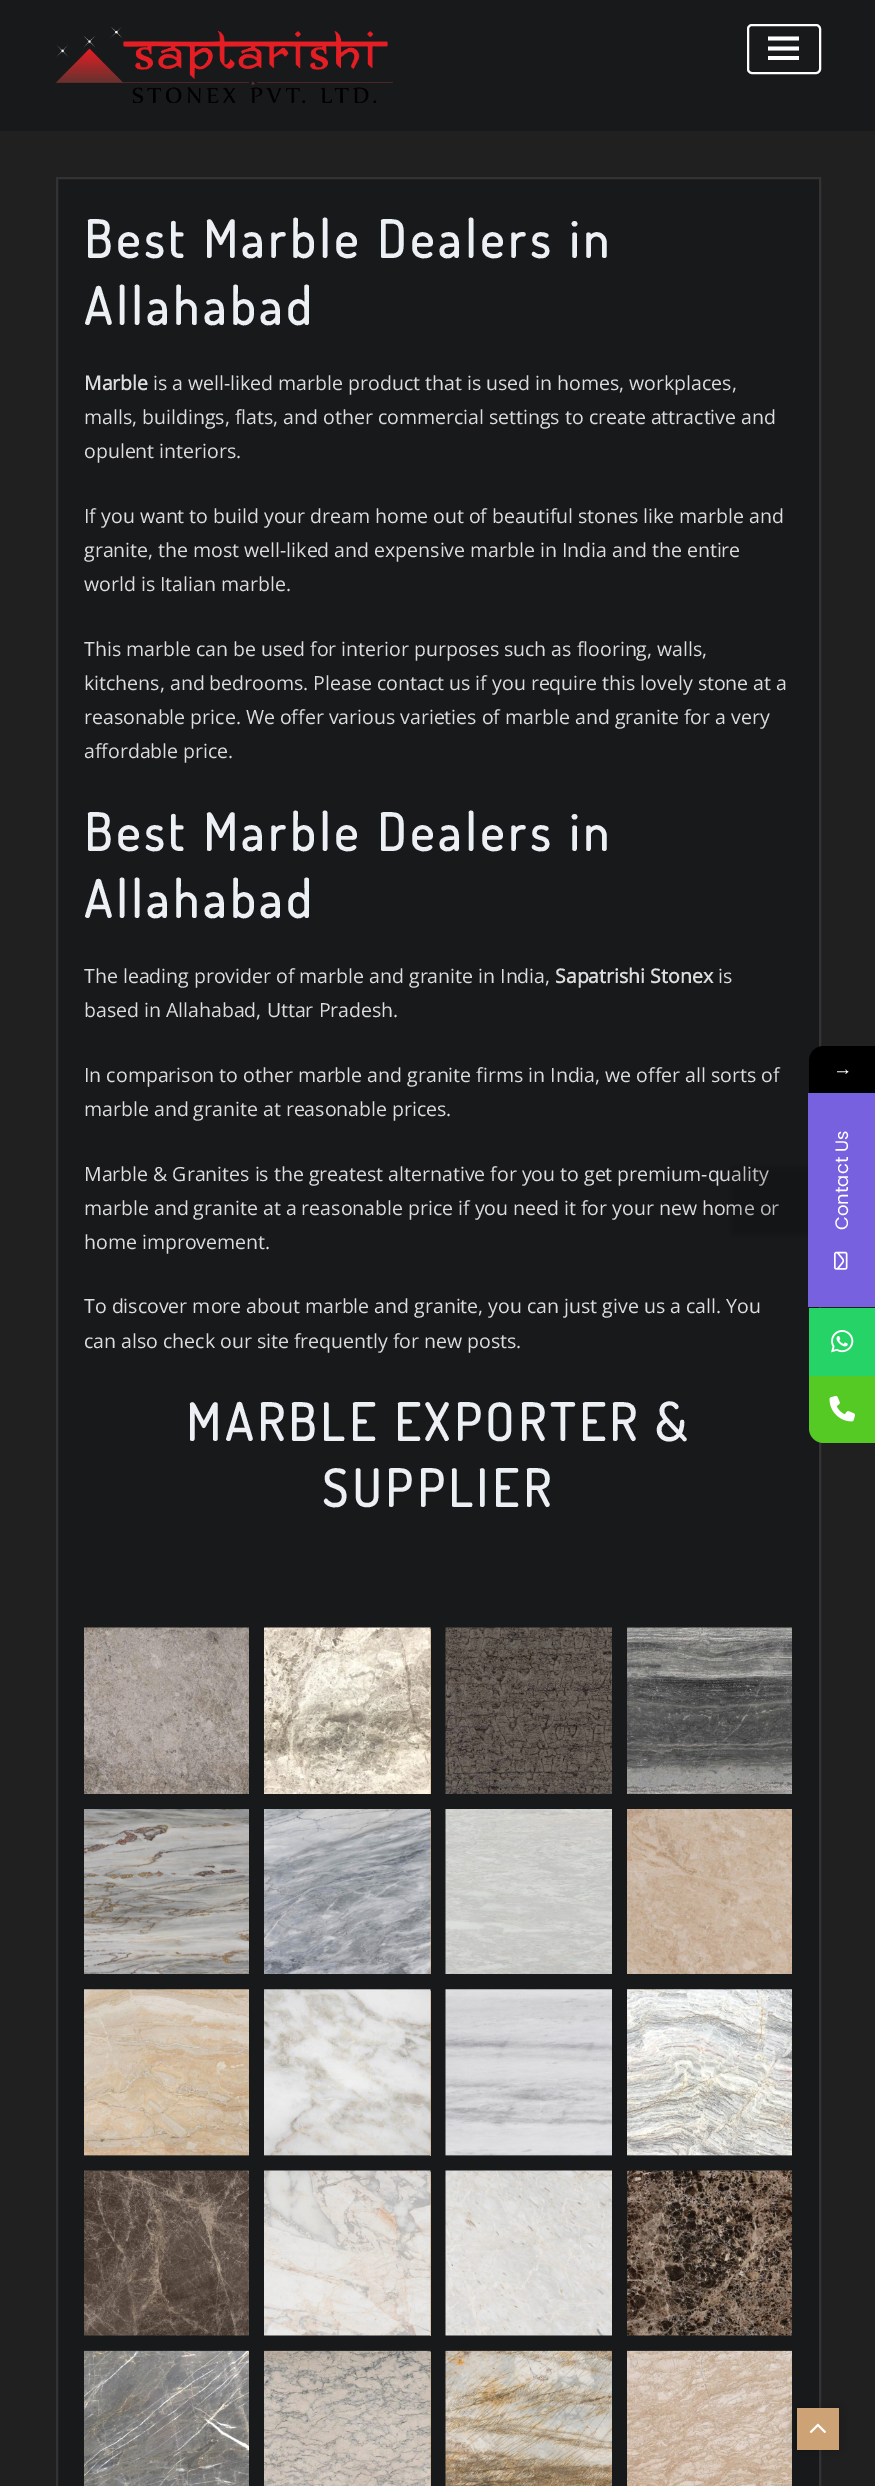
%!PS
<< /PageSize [875 2486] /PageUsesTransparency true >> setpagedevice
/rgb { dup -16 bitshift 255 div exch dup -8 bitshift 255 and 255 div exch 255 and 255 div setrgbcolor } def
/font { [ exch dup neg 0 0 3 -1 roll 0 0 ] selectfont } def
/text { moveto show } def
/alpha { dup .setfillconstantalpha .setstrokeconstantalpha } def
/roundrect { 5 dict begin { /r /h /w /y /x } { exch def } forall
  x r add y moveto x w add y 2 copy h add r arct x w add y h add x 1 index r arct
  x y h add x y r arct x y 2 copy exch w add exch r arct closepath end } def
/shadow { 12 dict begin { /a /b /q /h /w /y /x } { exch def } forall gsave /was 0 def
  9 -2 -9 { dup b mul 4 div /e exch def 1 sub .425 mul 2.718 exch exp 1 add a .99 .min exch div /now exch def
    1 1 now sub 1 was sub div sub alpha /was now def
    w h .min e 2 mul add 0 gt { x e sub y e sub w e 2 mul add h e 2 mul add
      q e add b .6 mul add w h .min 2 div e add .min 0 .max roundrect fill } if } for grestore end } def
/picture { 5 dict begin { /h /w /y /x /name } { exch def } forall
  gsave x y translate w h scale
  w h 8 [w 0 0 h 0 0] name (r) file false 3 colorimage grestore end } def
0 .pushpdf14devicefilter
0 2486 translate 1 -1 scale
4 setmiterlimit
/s1 { /OpenSans-Bold 19.5 font 16#DDDDDD rgb } def
/s2 { /OpenSans-Regular 19.5 font 16#DDDDDD rgb } def
/s3 { /LiberationSerif-Regular 19.5 font 16#FFFFFF rgb } def
16#202020 rgb
0 0 875 2486 rectfill
16#18191B rgb
0 0 875 131 rectfill
(pic1.raw) 55 27 338 76 picture
16#FFFFFF rgb
2 setlinewidth
748 25 72 48 4 roundrect stroke
3.7 setlinewidth
2 setlinecap
770 38.5 moveto 797 38.5 lineto 770 48.5 moveto 797 48.5 lineto 770 58 moveto 797 58 lineto stroke
16#18191B rgb
57 178 moveto 820 178 lineto 820 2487 lineto 57 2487 lineto closepath gsave fill grestore
16#333333 rgb
2 setlinewidth
0 setlinecap
stroke
/Dosis-Bold 51.25 font
16#ECEFF3 rgb
84 258 moveto 4.5 0 (Best Marble Dealers in) ashow
84 325 moveto 4.5 0 (Allahabad) ashow
s1
(Marble) 84 390 text
s2
(is a well-liked marble product that is used in homes, workplaces,) 153 390 text
(malls, buildings, flats, and other commercial settings to create attractive and) 84 424 text
(opulent interiors.) 84 458 text
(If you want to build your dream home out of beautiful stones like marble and) 84 523 text
(granite, the most well-liked and expensive marble in India and the entire) 84 557 text
(world is Italian marble.) 84 591 text
(This marble can be used for interior purposes such as flooring, walls,) 84 656 text
(kitchens, and bedrooms. Please contact us if you require this lovely stone at a) 84 690 text
(reasonable price. We offer various varieties of marble and granite for a very) 84 724 text
(affordable price.) 84 758 text
/Dosis-Bold 51.25 font
16#ECEFF3 rgb
84 851 moveto 4.5 0 (Best Marble Dealers in) ashow
84 918 moveto 4.5 0 (Allahabad) ashow
s2
(The leading provider of marble and granite in India,) 84 983 text
s1
(Sapatrishi Stonex) 555 983 text
s2
(is) 718 983 text
(based in Allahabad, Uttar Pradesh.) 84 1017 text
(In comparison to other marble and granite firms in India, we offer all sorts of) 84 1082 text
(marble and granite at reasonable prices.) 84 1116 text
(Marble & Granites is the greatest alternative for you to get premium-quality) 84 1181 text
(marble and granite at a reasonable price if you need it for your new home or) 84 1215 text
(home improvement.) 84 1249 text
(To discover more about marble and granite, you can just give us a call. You) 84 1313 text
(can also check our site frequently for new posts.) 84 1348 text
/Dosis-Bold 51.25 font
16#ECEFF3 rgb
186 1441 moveto 4.5 0 (MARBLE EXPORTER &) ashow
322 1507 moveto 4.5 0 (SUPPLIER) ashow
(pic2.raw) 84 1627 165 167 picture
gsave
264 1628 167 166 rectclip
16#CDA274 rgb
264 1794 moveto 264 1796 lineto 431 1796 lineto 431 1629 lineto 430 1629 lineto 430 1794 lineto closepath fill
grestore
(pic3.raw) 264 1627 167 167 picture
(pic4.raw) 445 1627 167 167 picture
(pic5.raw) 627 1627 165 167 picture
(pic6.raw) 84 1809 165 165 picture
gsave
264 1809 167 165 rectclip
16#CDA274 rgb
264 1974 moveto 264 1976 lineto 431 1976 lineto 431 1811 lineto 430 1811 lineto 430 1974 lineto closepath fill
grestore
(pic7.raw) 264 1809 167 165 picture
(pic8.raw) 445 1809 167 165 picture
(pic9.raw) 627 1809 165 165 picture
(pic10.raw) 84 1989 165 167 picture
gsave
264 1989 167 167 rectclip
16#CDA274 rgb
264 2156 moveto 264 2157 lineto 431 2157 lineto 431 1991 lineto 430 1991 lineto 430 2156 lineto closepath fill
grestore
(pic11.raw) 264 1989 167 167 picture
(pic12.raw) 445 1989 167 167 picture
(pic13.raw) 627 1989 165 167 picture
(pic14.raw) 84 2170 165 166 picture
gsave
264 2171 167 165 rectclip
16#CDA274 rgb
264 2336 moveto 264 2337 lineto 431 2337 lineto 431 2172 lineto 430 2172 lineto 430 2336 lineto closepath fill
grestore
(pic15.raw) 264 2170 167 166 picture
(pic16.raw) 445 2170 167 166 picture
(pic17.raw) 627 2170 165 166 picture
(pic18.raw) 84 2350 165 136 picture
16#CDA274 rgb
264 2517 moveto 264 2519 lineto 431 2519 lineto 431 2352 lineto 430 2352 lineto 430 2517 lineto closepath fill
(pic19.raw) 264 2350 167 136 picture
(pic20.raw) 445 2350 167 136 picture
(pic21.raw) 627 2350 165 136 picture
16#000000 rgb
824 1046 moveto 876 1046 lineto 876 1094 lineto 809 1094 lineto 809 1061 lineto 809 1052.5 815.5 1046 824 1046 curveto closepath fill
s3
(→) 833 1075 text
16#000000 rgb
731 1167 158 68 0 4.5 0.16 shadow
16#7761DF rgb
808 1093 67 214 rectfill
/Poppins-Regular 18 font
16#FFFFFF rgb
gsave 848 1230 translate -90 rotate 0 0 moveto (Contact Us) show grestore
(pic22.raw) 834 1251 14 19 picture
16#26D367 rgb
809 1308 66 68 rectfill
(pic23.raw) 831 1330 23 23 picture
16#55C924 rgb
809 1376 moveto 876 1376 lineto 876 1443 lineto 824 1443 lineto 815.5 1443 809 1436.5 809 1428 curveto closepath fill
(pic24.raw) 829 1396 26 26 picture
16#000000 rgb
797 2408 42 42 0 7.5 0.2 shadow
16#CDA274 rgb
797 2408 42 42 rectfill
(pic25.raw) 809 2423 17 10 picture
.poppdf14devicefilter showpage
